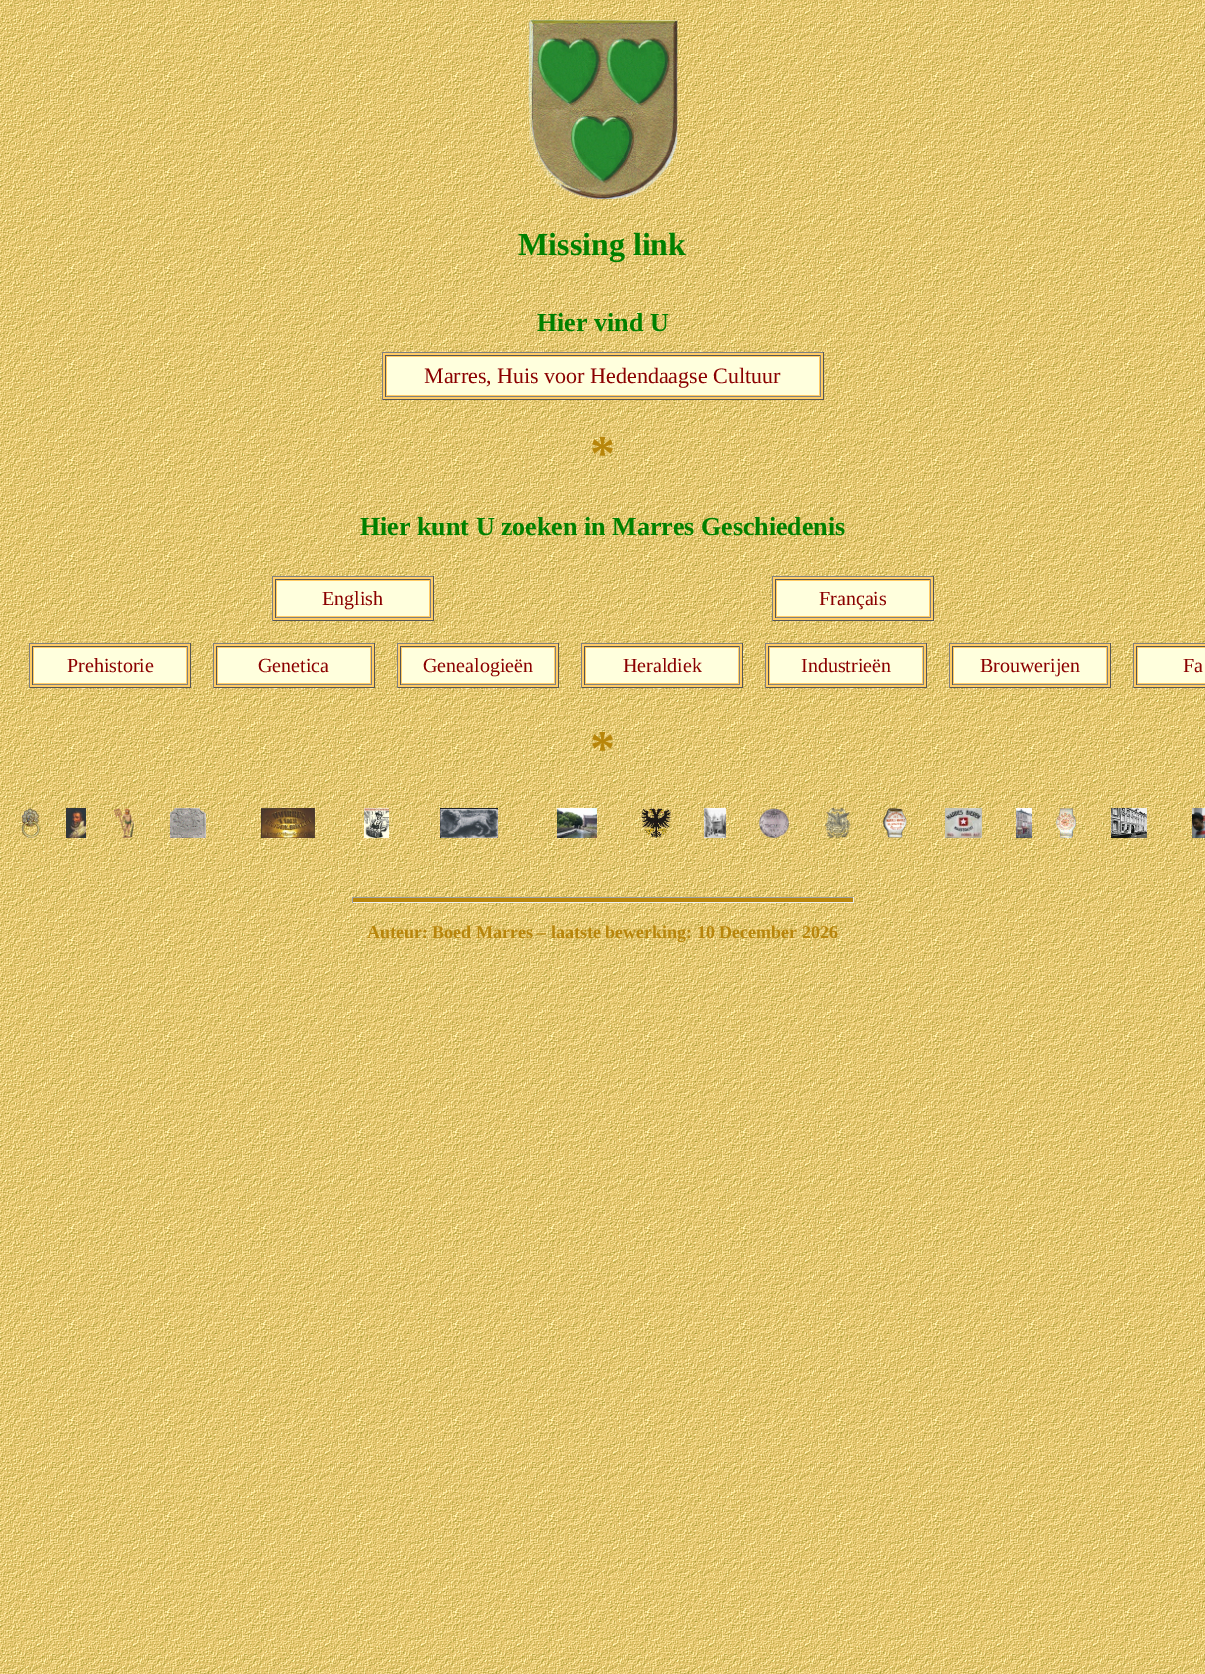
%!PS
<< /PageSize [1205 1674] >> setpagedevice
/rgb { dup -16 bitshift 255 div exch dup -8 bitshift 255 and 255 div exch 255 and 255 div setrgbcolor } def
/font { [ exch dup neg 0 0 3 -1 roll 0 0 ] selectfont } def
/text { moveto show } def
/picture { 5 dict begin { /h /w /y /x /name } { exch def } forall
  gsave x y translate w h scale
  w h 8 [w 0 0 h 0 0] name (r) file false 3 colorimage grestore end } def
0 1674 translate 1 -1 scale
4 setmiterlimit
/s1 { /LiberationSerif-Bold 32 font 16#008000 rgb } def
/s2 { /LiberationSerif-Bold 26 font 16#008000 rgb } def
/s3 { /LiberationSerif-Regular 22 font 16#8B0000 rgb } def
/s4 { /LiberationSerif-Bold 50 font 16#B8860B rgb } def
/s5 { /LiberationSerif-Regular 20 font 16#8B0000 rgb } def
/s6 { /LiberationSerif-Bold 18 font 16#B8860B rgb } def
16#FFFFFF rgb
0 0 1205 1674 rectfill
(pic1.raw) 0 0 1205 1674 picture
(pic2.raw) 528 19 150 181 picture
s1
(Missing link) 518 255 text
s2
(Hier vind U) 537 331 text
16#FFCC66 rgb
383 353 440 46 rectfill
16#808080 rgb
382 352 442 1 rectfill
16#555555 rgb
823 352 1 48 rectfill
382 399 442 1 rectfill
16#808080 rgb
382 352 1 48 rectfill
16#555555 rgb
385 355 436 1 rectfill
16#808080 rgb
820 355 1 42 rectfill
385 396 436 1 rectfill
16#555555 rgb
385 355 1 42 rectfill
16#FFFFDD rgb
387 357 432 38 rectfill
s3
(Marres, Huis voor Hedendaagse Cultuur) 424 383 text
s4
(*) 590 470 text
s2
(Hier kunt U zoeken in Marres Geschiedenis) 360 535 text
16#FFCC66 rgb
273 577 160 43 rectfill
16#808080 rgb
272 576 162 1 rectfill
16#555555 rgb
433 576 1 45 rectfill
272 620 162 1 rectfill
16#808080 rgb
272 576 1 45 rectfill
16#555555 rgb
275 579 156 1 rectfill
16#808080 rgb
430 579 1 39 rectfill
275 617 156 1 rectfill
16#555555 rgb
275 579 1 39 rectfill
16#FFFFDD rgb
277 581 152 35 rectfill
s5
(English) 322 605 text
16#FFCC66 rgb
773 577 160 43 rectfill
16#808080 rgb
772 576 162 1 rectfill
16#555555 rgb
933 576 1 45 rectfill
772 620 162 1 rectfill
16#808080 rgb
772 576 1 45 rectfill
16#555555 rgb
775 579 156 1 rectfill
16#808080 rgb
930 579 1 39 rectfill
775 617 156 1 rectfill
16#555555 rgb
775 579 1 39 rectfill
16#FFFFDD rgb
777 581 152 35 rectfill
s5
(Français) 819 605 text
16#FFCC66 rgb
30 644 160 43 rectfill
16#808080 rgb
29 643 162 1 rectfill
16#555555 rgb
190 643 1 45 rectfill
29 687 162 1 rectfill
16#808080 rgb
29 643 1 45 rectfill
16#555555 rgb
32 646 156 1 rectfill
16#808080 rgb
187 646 1 39 rectfill
32 684 156 1 rectfill
16#555555 rgb
32 646 1 39 rectfill
16#FFFFDD rgb
34 648 152 35 rectfill
s5
(Prehistorie) 67 672 text
16#FFCC66 rgb
214 644 160 43 rectfill
16#808080 rgb
213 643 162 1 rectfill
16#555555 rgb
374 643 1 45 rectfill
213 687 162 1 rectfill
16#808080 rgb
213 643 1 45 rectfill
16#555555 rgb
216 646 156 1 rectfill
16#808080 rgb
371 646 1 39 rectfill
216 684 156 1 rectfill
16#555555 rgb
216 646 1 39 rectfill
16#FFFFDD rgb
218 648 152 35 rectfill
s5
(Genetica) 258 672 text
16#FFCC66 rgb
398 644 160 43 rectfill
16#808080 rgb
397 643 162 1 rectfill
16#555555 rgb
558 643 1 45 rectfill
397 687 162 1 rectfill
16#808080 rgb
397 643 1 45 rectfill
16#555555 rgb
400 646 156 1 rectfill
16#808080 rgb
555 646 1 39 rectfill
400 684 156 1 rectfill
16#555555 rgb
400 646 1 39 rectfill
16#FFFFDD rgb
402 648 152 35 rectfill
s5
(Genealogieën) 423 672 text
16#FFCC66 rgb
582 644 160 43 rectfill
16#808080 rgb
581 643 162 1 rectfill
16#555555 rgb
742 643 1 45 rectfill
581 687 162 1 rectfill
16#808080 rgb
581 643 1 45 rectfill
16#555555 rgb
584 646 156 1 rectfill
16#808080 rgb
739 646 1 39 rectfill
584 684 156 1 rectfill
16#555555 rgb
584 646 1 39 rectfill
16#FFFFDD rgb
586 648 152 35 rectfill
s5
(Heraldiek) 623 672 text
16#FFCC66 rgb
766 644 160 43 rectfill
16#808080 rgb
765 643 162 1 rectfill
16#555555 rgb
926 643 1 45 rectfill
765 687 162 1 rectfill
16#808080 rgb
765 643 1 45 rectfill
16#555555 rgb
768 646 156 1 rectfill
16#808080 rgb
923 646 1 39 rectfill
768 684 156 1 rectfill
16#555555 rgb
768 646 1 39 rectfill
16#FFFFDD rgb
770 648 152 35 rectfill
s5
(Industrieën) 801 672 text
16#FFCC66 rgb
950 644 160 43 rectfill
16#808080 rgb
949 643 162 1 rectfill
16#555555 rgb
1110 643 1 45 rectfill
949 687 162 1 rectfill
16#808080 rgb
949 643 1 45 rectfill
16#555555 rgb
952 646 156 1 rectfill
16#808080 rgb
1107 646 1 39 rectfill
952 684 156 1 rectfill
16#555555 rgb
952 646 1 39 rectfill
16#FFFFDD rgb
954 648 152 35 rectfill
s5
(Brouwerijen) 980 672 text
16#FFCC66 rgb
1134 644 71 43 rectfill
16#808080 rgb
1133 643 72 1 rectfill
16#555555 rgb
1133 687 72 1 rectfill
16#808080 rgb
1133 643 1 45 rectfill
16#555555 rgb
1136 646 69 1 rectfill
16#808080 rgb
1136 684 69 1 rectfill
16#555555 rgb
1136 646 1 39 rectfill
16#FFFFDD rgb
1138 648 67 35 rectfill
s5
(Fa) 1183 672 text
s4
(*) 590 765 text
(pic3.raw) 21 808 19 30 picture
(pic4.raw) 66 808 20 30 picture
(pic5.raw) 114 808 20 30 picture
(pic6.raw) 170 808 36 30 picture
(pic7.raw) 261 808 54 30 picture
(pic8.raw) 364 808 25 30 picture
(pic9.raw) 440 808 58 30 picture
(pic10.raw) 557 808 40 30 picture
(pic11.raw) 641 808 30 30 picture
(pic12.raw) 704 808 22 30 picture
(pic13.raw) 759 808 30 30 picture
(pic14.raw) 825 808 26 30 picture
(pic15.raw) 883 808 24 30 picture
(pic16.raw) 945 808 37 30 picture
(pic17.raw) 1016 808 16 30 picture
(pic18.raw) 1056 808 20 30 picture
(pic19.raw) 1111 808 36 30 picture
(pic20.raw) 1192 808 13 30 picture
352 898 502 4 rectfill
16#9F9F9F rgb
352 897 502 1 rectfill
16#EEEEEE rgb
853 897 1 6 rectfill
352 902 502 1 rectfill
16#9F9F9F rgb
352 897 1 6 rectfill
s6
(Auteur: Boed Marres – laatste bewerking: 10 December 2026) 367 938 text
showpage
